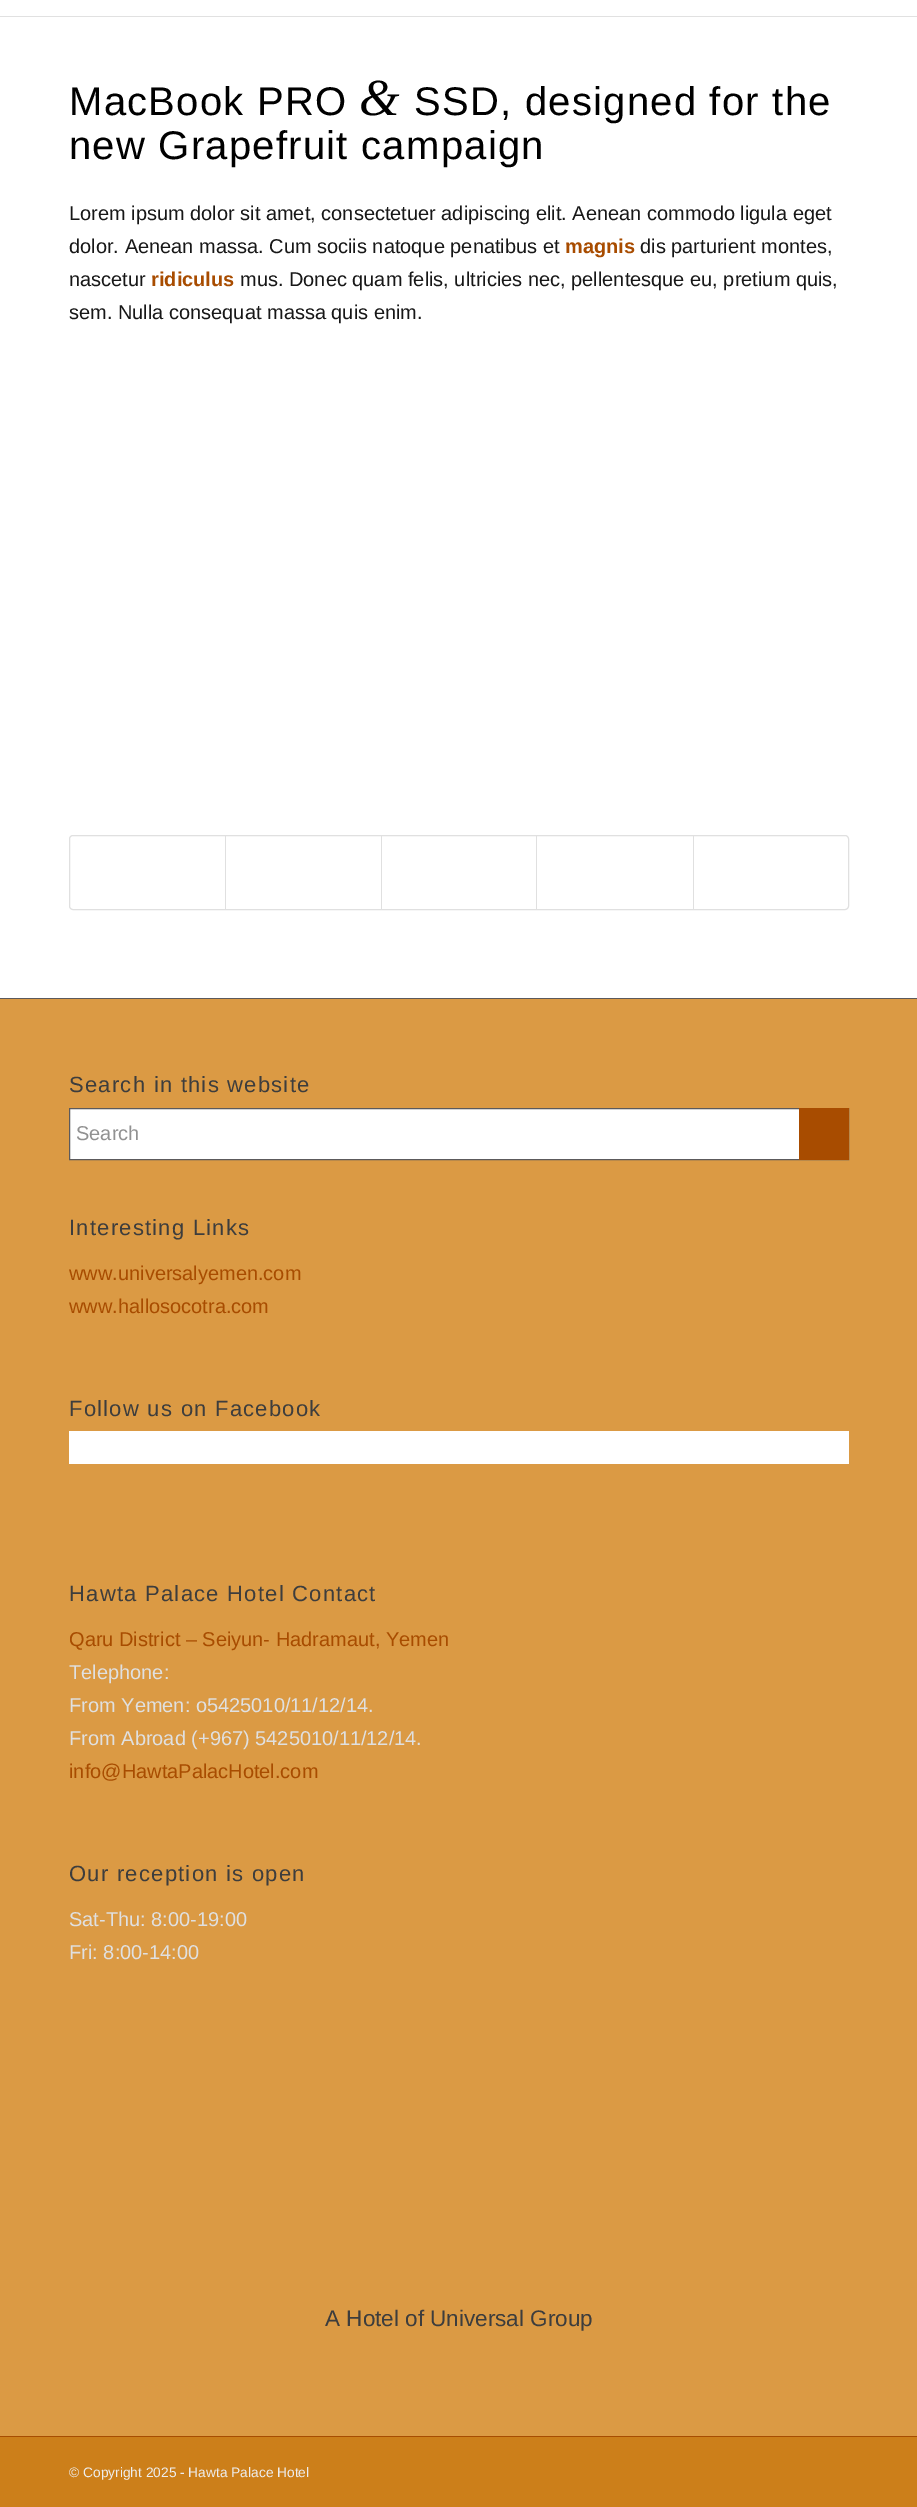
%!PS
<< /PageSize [917 2507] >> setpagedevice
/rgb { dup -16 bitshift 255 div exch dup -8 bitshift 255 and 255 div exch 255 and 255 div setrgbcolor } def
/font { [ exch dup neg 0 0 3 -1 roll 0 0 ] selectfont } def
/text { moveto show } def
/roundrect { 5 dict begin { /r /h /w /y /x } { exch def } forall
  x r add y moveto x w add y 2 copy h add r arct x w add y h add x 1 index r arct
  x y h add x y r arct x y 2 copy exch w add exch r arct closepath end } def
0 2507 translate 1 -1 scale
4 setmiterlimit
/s1 { /LiberationSans-Regular 20 font 16#171717 rgb } def
/s2 { /LiberationSans-Bold 20 font 16#A84C00 rgb } def
/s3 { /LiberationSans-Regular 20 font 16#919191 rgb } def
/s4 { /LiberationSans-Regular 20 font 16#A84C00 rgb } def
/s5 { /LiberationSans-Regular 20 font 16#E0E0E0 rgb } def
/s6 { /LiberationSans-Regular 22.5 font 16#3D3D3D rgb } def
/s7 { /LiberationSans-Regular 13.75 font 16#EEEEEE rgb } def
16#FFFFFF rgb
0 0 917 2507 rectfill
16#E1E1E1 rgb
0 16 917 1 rectfill
/LiberationSans-Regular 40 font
16#000000 rgb
69 115 moveto 1.25 0 (MacBook PRO) ashow
/LiberationSerif-Italic 52 font
359 115 moveto 1.25 0 (&) ashow
/LiberationSans-Regular 40 font
414 115 moveto 1.25 0 (SSD, designed for the) ashow
69 159 moveto 1.25 0 (new Grapefruit campaign) ashow
s1
(Lorem ipsum dolor sit amet, consectetuer adipiscing elit. Aenean commodo ligula eget) 69 220 text
(dolor. Aenean massa. Cum sociis natoque penatibus et) 69 253 text
s2
(magnis) 565 253 text
s1
(dis parturient montes,) 640 253 text
(nascetur) 69 286 text
s2
(ridiculus) 151 286 text
s1
(mus. Donec quam felis, ultricies nec, pellentesque eu, pretium quis,) 240 286 text
(sem. Nulla consequat massa quis enim.) 69 319 text
16#E0E0E0 rgb
69.5 835.5 779 74 3.5 roundrect stroke
225 836 1 73 rectfill
381 836 1 73 rectfill
536 836 1 73 rectfill
693 836 1 73 rectfill
16#DB9A44 rgb
0 999 917 1437 rectfill
16#5C5A5C rgb
0 998 917 1 rectfill
/LiberationSans-Regular 22 font
16#3D3D3D rgb
69 1092 moveto 1.25 0 (Search in this website) ashow
16#FFFFFF rgb
70 1109 729 50 rectfill
16#5C5A5C rgb
69.5 1108.5 779 51 rectstroke
s3
(Search) 76 1140 text
16#A84C00 rgb
799 1108 50 52 rectfill
/LiberationSans-Regular 22 font
16#3D3D3D rgb
69 1235 moveto 1.25 0 (Interesting Links) ashow
s4
(www.universalyemen.com) 69 1280 text
(www.hallosocotra.com) 69 1313 text
/LiberationSans-Regular 22 font
16#3D3D3D rgb
69 1416 moveto 1.25 0 (Follow us on Facebook) ashow
16#FFFFFF rgb
69 1431 780 33 rectfill
16#3D3D3D rgb
69 1601 moveto 1.25 0 (Hawta Palace Hotel Contact) ashow
s4
(Qaru District – Seiyun- Hadramaut, Yemen) 69 1646 text
s5
(Telephone:) 69 1679 text
(From Yemen: o5425010/11/12/14.) 69 1712 text
(From Abroad \(+967\) 5425010/11/12/14.) 69 1745 text
s4
(info@HawtaPalacHotel.com) 69 1778 text
/LiberationSans-Regular 22 font
16#3D3D3D rgb
69 1881 moveto 1.25 0 (Our reception is open) ashow
s5
(Sat-Thu: 8:00-19:00) 69 1926 text
(Fri: 8:00-14:00) 69 1959 text
s6
(A Hotel of Universal Group) 325 2326 text
16#CC7F1A rgb
0 2437 917 70 rectfill
16#A84C00 rgb
0 2436 917 1 rectfill
s7
(© Copyright 2025 - Hawta Palace Hotel) 69 2477 text
showpage
